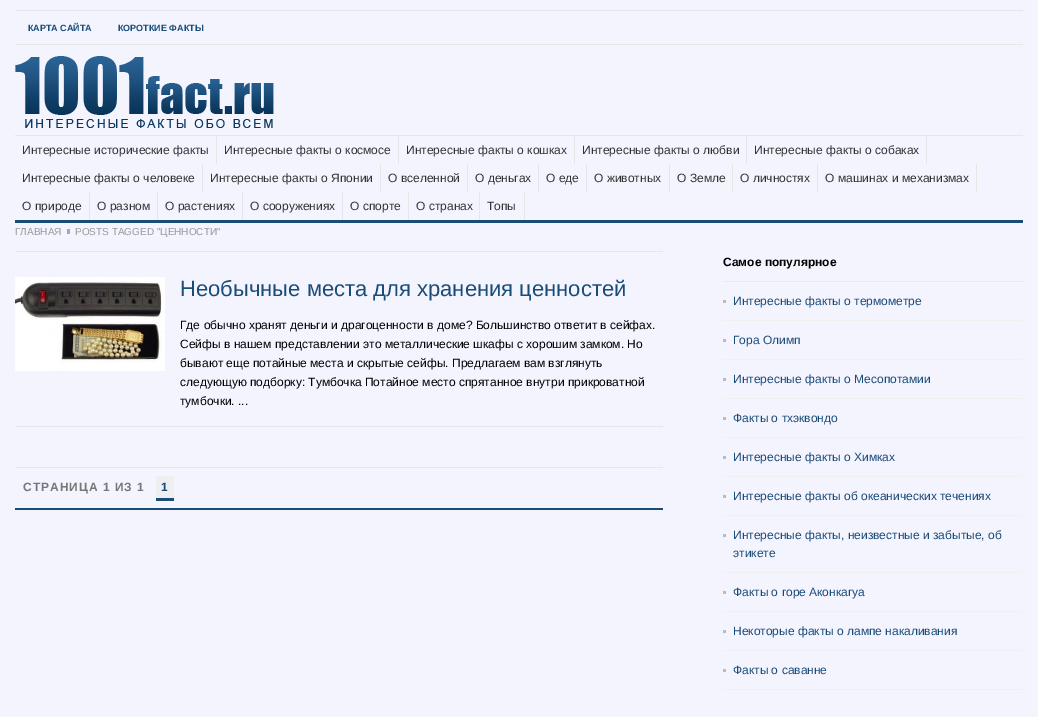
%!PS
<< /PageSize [1038 717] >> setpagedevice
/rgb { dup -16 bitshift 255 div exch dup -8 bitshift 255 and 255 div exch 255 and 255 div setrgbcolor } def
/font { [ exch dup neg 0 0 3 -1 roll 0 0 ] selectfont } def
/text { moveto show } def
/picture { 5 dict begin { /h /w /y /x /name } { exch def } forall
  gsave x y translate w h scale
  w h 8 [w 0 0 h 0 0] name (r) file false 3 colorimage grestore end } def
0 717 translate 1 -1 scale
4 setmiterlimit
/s1 { /LiberationSans-Bold 9 font 16#1A4C78 rgb } def
/s2 { /LiberationSans-Regular 12 font 16#333333 rgb } def
/s3 { /LiberationSans-Regular 10 font 16#999999 rgb } def
/s4 { /LiberationSans-Regular 22 font 16#1A4C78 rgb } def
/s5 { /LiberationSans-Regular 12 font 16#000000 rgb } def
/s6 { /LiberationSans-Bold 12 font 16#000000 rgb } def
/s7 { /LiberationSans-Regular 12 font 16#1A4C78 rgb } def
16#F4F4FF rgb
0 0 1038 717 rectfill
16#E6E6E6 rgb
15 10 1008 1 rectfill
15 44 1008 1 rectfill
s1
(КАРТА САЙТА) 28 31 text
(КОРОТКИЕ ФАКТЫ) 118 31 text
(pic1.raw) 15 56 259 72 picture
16#E6E6E6 rgb
15 135 1008 1 rectfill
16#1A4C78 rgb
15 220 1008 3 rectfill
16#E6E6E6 rgb
216 136 1 28 rectfill
s2
(Интересные исторические факты) 22 154 text
16#E6E6E6 rgb
398 136 1 28 rectfill
s2
(Интересные факты о космосе) 224 154 text
16#E6E6E6 rgb
574 136 1 28 rectfill
s2
(Интересные факты о кошках) 406 154 text
16#E6E6E6 rgb
746 136 1 28 rectfill
s2
(Интересные факты о любви) 582 154 text
16#E6E6E6 rgb
926 136 1 28 rectfill
s2
(Интересные факты о собаках) 754 154 text
16#E6E6E6 rgb
202 164 1 28 rectfill
s2
(Интересные факты о человеке) 22 182 text
16#E6E6E6 rgb
380 164 1 28 rectfill
s2
(Интересные факты о Японии) 210 182 text
16#E6E6E6 rgb
467 164 1 28 rectfill
s2
(О вселенной) 388 182 text
16#E6E6E6 rgb
538 164 1 28 rectfill
s2
(О деньгах) 475 182 text
16#E6E6E6 rgb
586 164 1 28 rectfill
s2
(О еде) 546 182 text
16#E6E6E6 rgb
669 164 1 28 rectfill
s2
(О животных) 594 182 text
16#E6E6E6 rgb
732 164 1 28 rectfill
s2
(О Земле) 677 182 text
16#E6E6E6 rgb
817 164 1 28 rectfill
s2
(О личностях) 740 182 text
16#E6E6E6 rgb
976 164 1 28 rectfill
s2
(О машинах и механизмах) 825 182 text
16#E6E6E6 rgb
89 192 1 28 rectfill
s2
(О природе) 22 210 text
16#E6E6E6 rgb
157 192 1 28 rectfill
s2
(О разном) 97 210 text
16#E6E6E6 rgb
242 192 1 28 rectfill
s2
(О растениях) 165 210 text
16#E6E6E6 rgb
342 192 1 28 rectfill
s2
(О сооружениях) 250 210 text
16#E6E6E6 rgb
408 192 1 28 rectfill
s2
(О спорте) 350 210 text
16#E6E6E6 rgb
479 192 1 28 rectfill
s2
(О странах) 416 210 text
16#E6E6E6 rgb
524 192 1 28 rectfill
s2
(Топы) 487 210 text
16#E6E6E6 rgb
15 251 648 1 rectfill
s3
(ГЛАВНАЯ) 15 235 text
16#9AABBC rgb
67 229 3 5 rectfill
s3
(POSTS TAGGED "ЦЕННОСТИ") 75 235 text
16#E6E6E6 rgb
15 426 648 1 rectfill
(pic2.raw) 15 277 150 94 picture
s4
(Необычные места для хранения ценностей) 180 296 text
s5
(Где обычно хранят деньги и драгоценности в доме? Большинство ответит в сейфах.) 180 329 text
(Сейфы в нашем представлении это металлические шкафы с хорошим замком. Но) 180 348 text
(бывают еще потайные места и скрытые сейфы. Предлагаем вам взглянуть) 180 367 text
(следующую подборку: Тумбочка Потайное место спрятанное внутри прикроватной) 180 386 text
(тумбочки. ...) 180 405 text
16#E6E6E6 rgb
15 467 648 1 rectfill
16#1A4C78 rgb
15 508 648 2 rectfill
/LiberationSans-Bold 12 font
16#777777 rgb
23 491 moveto 1 0 (СТРАНИЦА 1 ИЗ 1) ashow
16#EFEFEF rgb
156 476 18 22 rectfill
16#1A4C78 rgb
156 498 18 3 rectfill
161 491 moveto 1 0 (1) ashow
16#E9E9E9 rgb
723 281 300 1 rectfill
s6
(Самое популярное) 723 266 text
16#BBBBBB rgb
723 300 3 3 rectfill
16#F0F0F0 rgb
723 320 300 1 rectfill
s7
(Интересные факты о термометре) 733 305 text
16#BBBBBB rgb
723 339 3 3 rectfill
16#F0F0F0 rgb
723 359 300 1 rectfill
s7
(Гора Олимп) 733 344 text
16#BBBBBB rgb
723 378 3 3 rectfill
16#F0F0F0 rgb
723 398 300 1 rectfill
s7
(Интересные факты о Месопотамии) 733 383 text
16#BBBBBB rgb
723 417 3 3 rectfill
16#F0F0F0 rgb
723 437 300 1 rectfill
s7
(Факты о тхэквондо) 733 422 text
16#BBBBBB rgb
723 456 3 3 rectfill
16#F0F0F0 rgb
723 476 300 1 rectfill
s7
(Интересные факты о Химках) 733 461 text
16#BBBBBB rgb
723 495 3 3 rectfill
16#F0F0F0 rgb
723 515 300 1 rectfill
s7
(Интересные факты об океанических течениях) 733 500 text
16#BBBBBB rgb
723 534 3 3 rectfill
16#F0F0F0 rgb
723 572 300 1 rectfill
s7
(Интересные факты, неизвестные и забытые, об) 733 539 text
(этикете) 733 557 text
16#BBBBBB rgb
723 591 3 3 rectfill
16#F0F0F0 rgb
723 611 300 1 rectfill
s7
(Факты о горе Аконкагуа) 733 596 text
16#BBBBBB rgb
723 630 3 3 rectfill
16#F0F0F0 rgb
723 650 300 1 rectfill
s7
(Некоторые факты о лампе накаливания) 733 635 text
16#BBBBBB rgb
723 669 3 3 rectfill
16#F0F0F0 rgb
723 689 300 1 rectfill
s7
(Факты о саванне) 733 674 text
showpage
